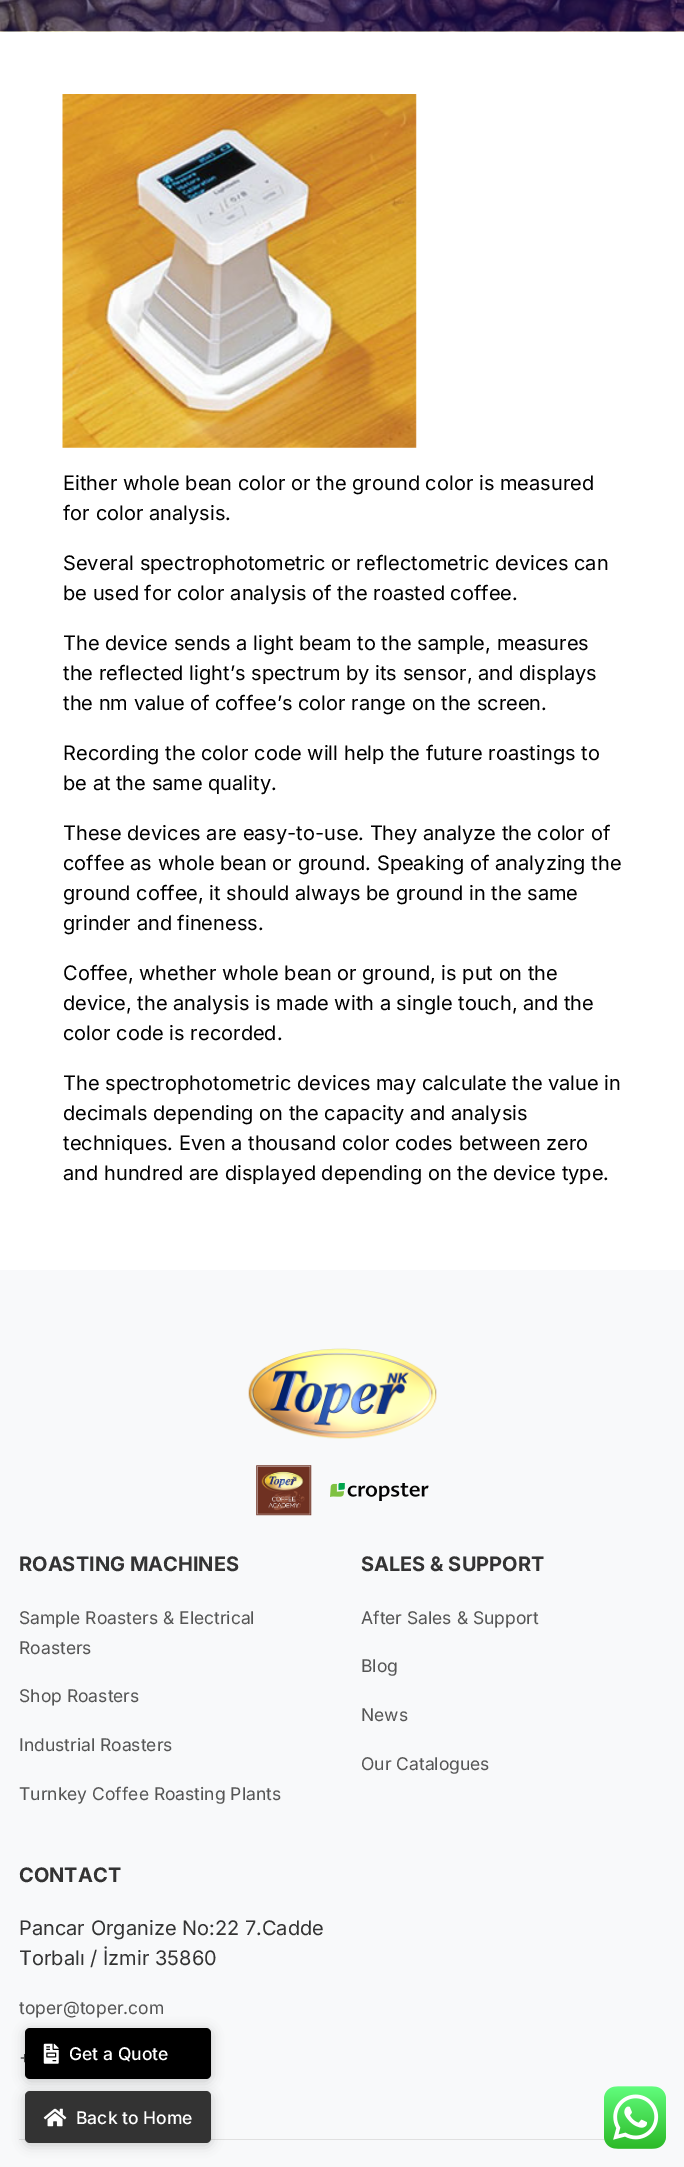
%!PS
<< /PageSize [684 2167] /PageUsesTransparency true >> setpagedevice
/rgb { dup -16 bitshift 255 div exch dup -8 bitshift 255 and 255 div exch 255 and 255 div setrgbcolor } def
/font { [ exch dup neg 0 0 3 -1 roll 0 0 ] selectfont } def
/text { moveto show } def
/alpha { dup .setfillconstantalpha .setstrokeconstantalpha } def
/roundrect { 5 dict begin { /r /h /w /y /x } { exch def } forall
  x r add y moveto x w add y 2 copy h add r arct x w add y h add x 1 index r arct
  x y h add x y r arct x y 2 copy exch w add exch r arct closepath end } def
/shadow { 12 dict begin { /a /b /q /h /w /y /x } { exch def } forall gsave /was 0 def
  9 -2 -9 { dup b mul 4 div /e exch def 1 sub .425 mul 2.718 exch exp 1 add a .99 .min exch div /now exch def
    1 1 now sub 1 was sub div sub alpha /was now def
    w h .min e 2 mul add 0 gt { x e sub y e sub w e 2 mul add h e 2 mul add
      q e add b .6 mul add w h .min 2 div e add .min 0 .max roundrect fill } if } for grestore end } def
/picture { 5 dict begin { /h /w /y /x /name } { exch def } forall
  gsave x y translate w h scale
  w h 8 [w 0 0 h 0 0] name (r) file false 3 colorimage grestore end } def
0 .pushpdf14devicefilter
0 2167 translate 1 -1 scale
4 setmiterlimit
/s1 { /Inter-Regular 20 font 16#000000 rgb } def
/s2 { /Inter-Bold 20 font 16#333333 rgb } def
/s3 { /Inter-Regular 17.5 font 16#555555 rgb } def
/s4 { /Inter-Regular 20 font 16#333333 rgb } def
/s5 { /Inter-Medium 17.5 font 16#FFFFFF rgb } def
16#FFFFFF rgb
0 0 684 2167 rectfill
(pic1.raw) 0 0 684 32 picture
(pic2.raw) 62 94 355 354 picture
s1
(Either whole bean color or the ground color is measured) 63 490 text
(for color analysis.) 63 520 text
(Several spectrophotometric or reflectometric devices can) 63 570 text
(be used for color analysis of the roasted coffee.) 63 600 text
(The device sends a light beam to the sample, measures) 63 650 text
(the reflected light’s spectrum by its sensor, and displays) 63 680 text
(the nm value of coffee’s color range on the screen.) 63 710 text
(Recording the color code will help the future roastings to) 63 760 text
(be at the same quality.) 63 790 text
(These devices are easy-to-use. They analyze the color of) 63 840 text
(coffee as whole bean or ground. Speaking of analyzing the) 63 870 text
(ground coffee, it should always be ground in the same) 63 900 text
(grinder and fineness.) 63 930 text
(Coffee, whether whole bean or ground, is put on the) 63 980 text
(device, the analysis is made with a single touch, and the) 63 1010 text
(color code is recorded.) 63 1040 text
(The spectrophotometric devices may calculate the value in) 63 1090 text
(decimals depending on the capacity and analysis) 63 1120 text
(techniques. Even a thousand color codes between zero) 63 1150 text
(and hundred are displayed depending on the device type.) 63 1180 text
16#F8F9FA rgb
0 1270 684 897 rectfill
(pic3.raw) 248 1348 189 91 picture
(pic4.raw) 256 1465 56 51 picture
(pic5.raw) 330 1483 99 18 picture
s2
(ROASTING MACHINES) 19 1571 text
s3
(Sample Roasters & Electrical) 19 1624 text
(Roasters) 19 1654 text
(Shop Roasters) 19 1702 text
(Industrial Roasters) 19 1751 text
(Turnkey Coffee Roasting Plants) 19 1800 text
s2
(SALES & SUPPORT) 361 1571 text
s3
(After Sales & Support) 361 1624 text
(Blog) 361 1672 text
(News) 361 1721 text
(Our Catalogues) 361 1770 text
s2
(CONTACT) 19 1882 text
s4
(Pancar Organize No:22 7.Cadde) 19 1935 text
(Torbalı / İzmir 35860) 19 1965 text
s3
(toper@toper.com) 19 2014 text
(+) 19 2063 text
16#E0E0E0 rgb
19 2139 647 1 rectfill
16#000000 rgb
25 2030 186 51 5 6 0.2 shadow
25 2028 186 51 5 roundrect fill
(pic6.raw) 43 2043 16 21 picture
s5
(Get a Quote) 69 2060 text
16#000000 rgb
25 2094 186 51 5 6 0.2 shadow
16#333333 rgb
25 2091 186 52 5 roundrect fill
(pic7.raw) 43 2108 24 19 picture
s5
(Back to Home) 76 2124 text
(pic8.raw) 604 2086 62 63 picture
.poppdf14devicefilter showpage
